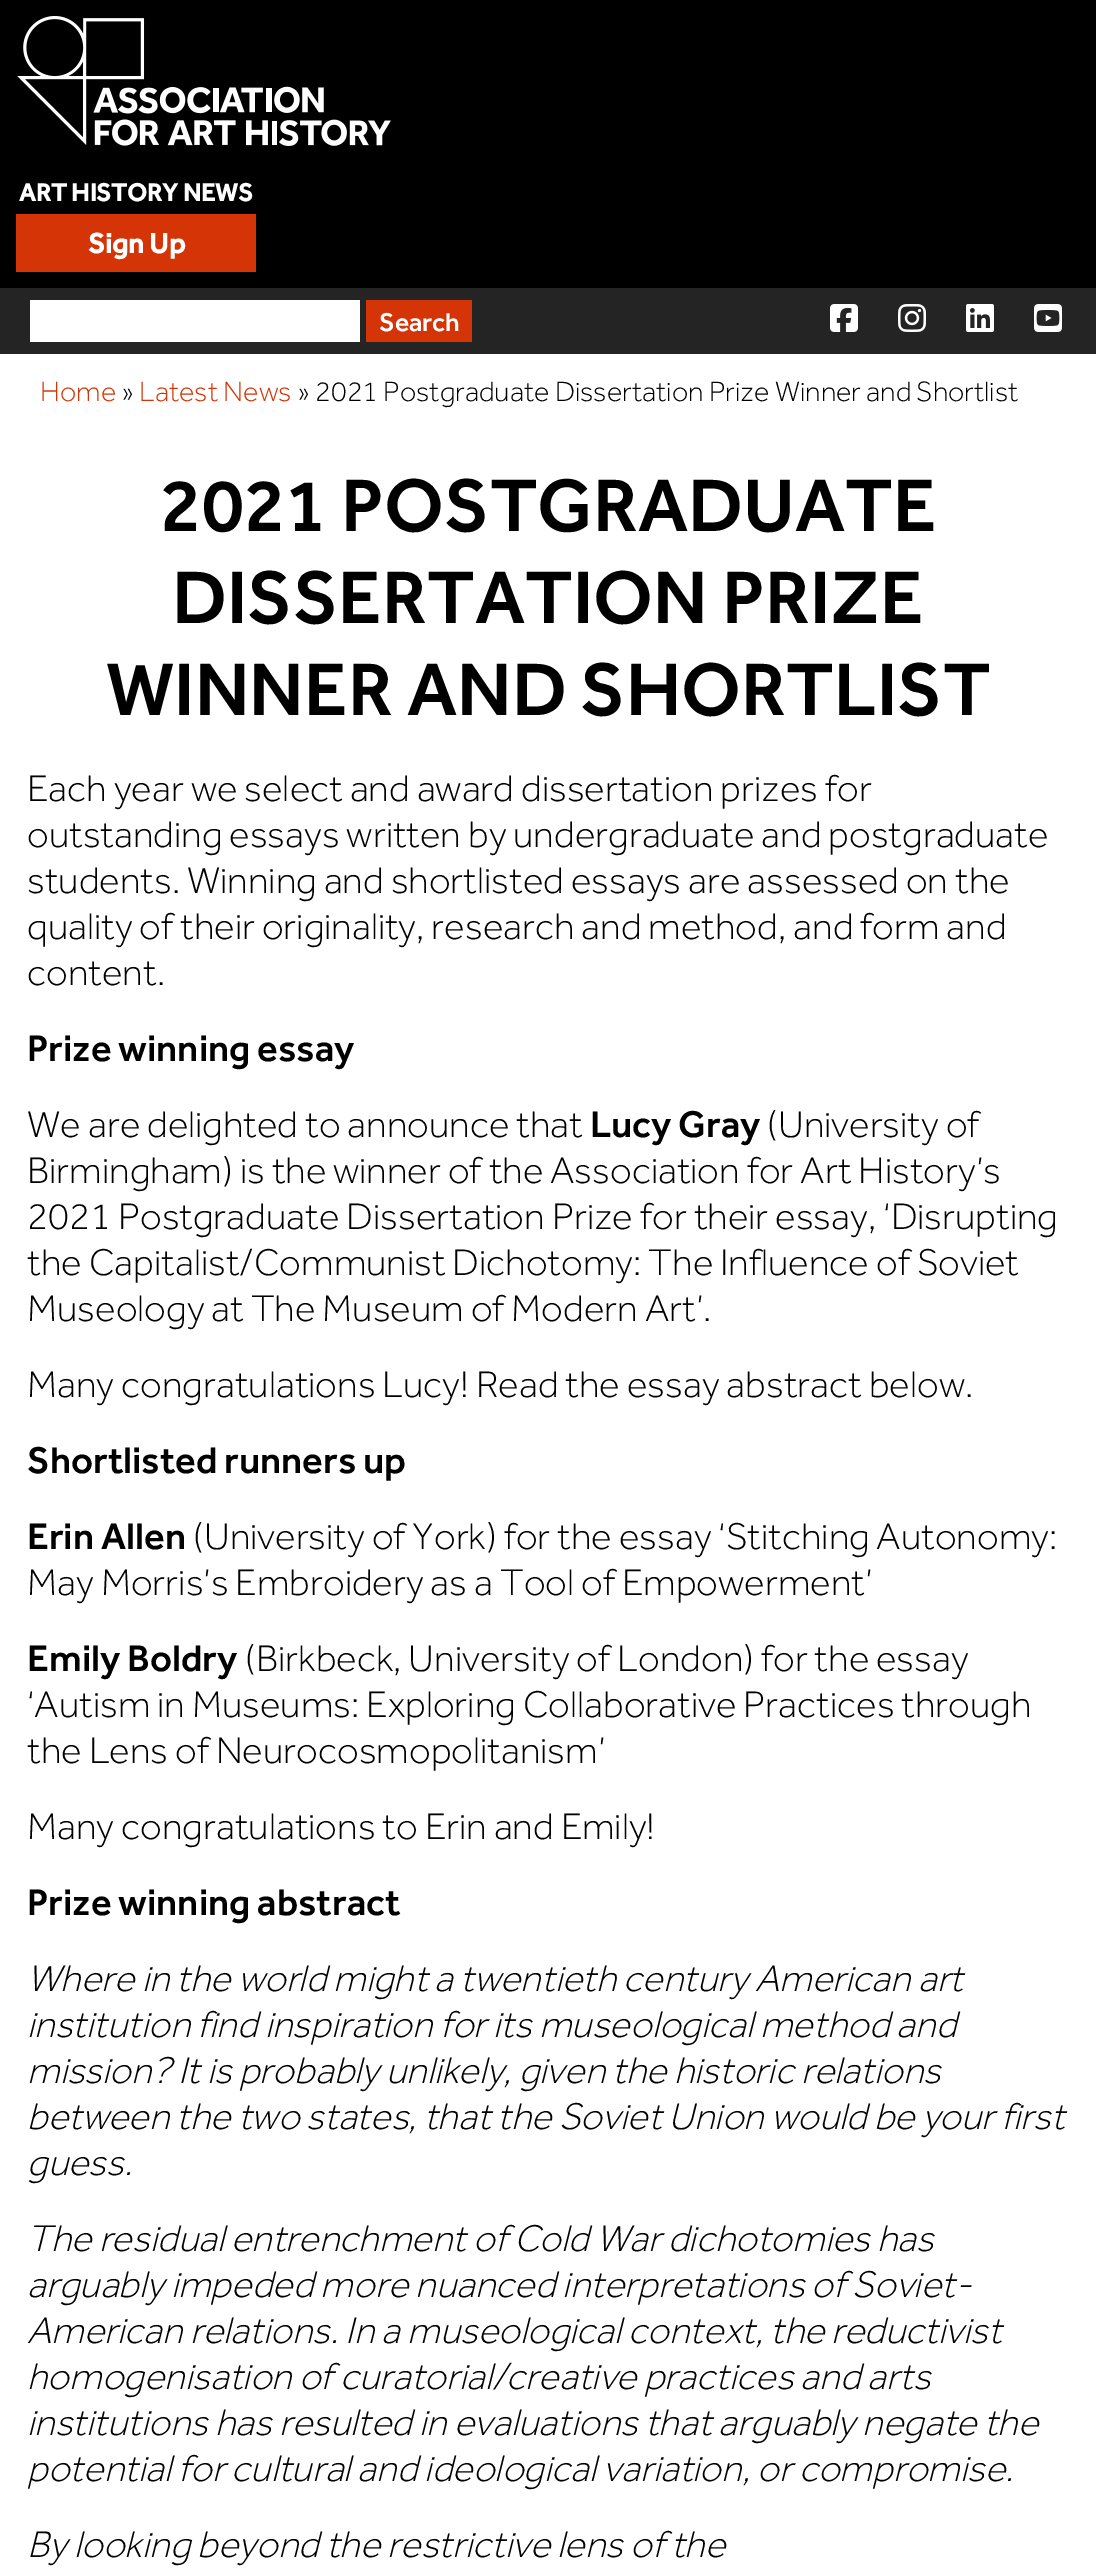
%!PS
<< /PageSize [1096 2568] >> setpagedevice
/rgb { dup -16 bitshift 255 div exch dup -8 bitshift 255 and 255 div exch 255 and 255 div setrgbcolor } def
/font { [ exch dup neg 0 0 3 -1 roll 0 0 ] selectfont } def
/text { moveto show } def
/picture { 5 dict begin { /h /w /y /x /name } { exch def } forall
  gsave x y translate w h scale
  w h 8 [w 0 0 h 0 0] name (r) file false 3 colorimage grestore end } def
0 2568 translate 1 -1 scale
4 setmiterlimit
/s1 { /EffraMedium-Bold 25.5 font 16#FFFFFF rgb } def
/s2 { /EffraMedium-Bold 28.8 font 16#FFFFFF rgb } def
/s3 { /EffraMedium-Medium 26.5 font 16#FFFFFF rgb } def
/s4 { /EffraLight-Light 28.8 font 16#D53506 rgb } def
/s5 { /EffraLight-Light 28.8 font 16#000000 rgb } def
/s6 { /EffraMedium-Medium 76.75 font 16#000000 rgb } def
/s7 { /EffraLight-Light 38.4 font 16#000000 rgb } def
/s8 { /EffraMedium-Medium 38.4 font 16#000000 rgb } def
/s9 { /EffraLight-LightItalic 38.4 font 16#000000 rgb } def
16#FFFFFF rgb
0 0 1096 2568 rectfill
16#000000 rgb
0 0 1096 288 rectfill
(pic1.raw) 17 16 374 130 picture
s1
(ART HISTORY NEWS) 19 201 text
16#D53506 rgb
16 214 240 58 rectfill
s2
(Sign Up) 88 253 text
16#242424 rgb
0 288 1096 66 rectfill
16#FFFFFF rgb
30 300 330 42 rectfill
16#D53506 rgb
366 300 106 42 rectfill
s3
(Search) 379 331 text
(pic2.raw) 830 304 28 28 picture
(pic3.raw) 898 304 28 28 picture
(pic4.raw) 966 304 28 28 picture
(pic5.raw) 1034 304 28 28 picture
s4
(Home) 40 401 text
s5
(») 121 401 text
s4
(Latest News) 139 401 text
s5
(» 2021 Postgraduate Dissertation Prize Winner and Shortlist) 297 401 text
s6
(2021 POSTGRADUATE) 160 531 text
(DISSERTATION PRIZE) 172 623 text
(WINNER AND SHORTLIST) 106 715 text
s7
(Each year we select and award dissertation prizes for) 27 801 text
(outstanding essays written by undergraduate and postgraduate) 27 847 text
(students. Winning and shortlisted essays are assessed on the) 27 893 text
(quality of their originality, research and method, and form and) 27 939 text
(content.) 27 985 text
s8
(Prize winning essay) 27 1061 text
s7
(We are delighted to announce that) 27 1137 text
s8
(Lucy Gray) 590 1137 text
s7
(\(University of) 767 1137 text
(Birmingham\) is the winner of the Association for Art History’s) 27 1183 text
(2021 Postgraduate Dissertation Prize for their essay, ‘Disrupting) 27 1229 text
(the Capitalist/Communist Dichotomy: The Influence of Soviet) 27 1275 text
(Museology at The Museum of Modern Art’.) 27 1321 text
(Many congratulations Lucy! Read the essay abstract below.) 27 1397 text
s8
(Shortlisted runners up) 27 1473 text
(Erin Allen) 27 1549 text
s7
(\(University of York\) for the essay ‘Stitching Autonomy:) 193 1549 text
(May Morris’s Embroidery as a Tool of Empowerment’) 27 1595 text
s8
(Emily Boldry) 27 1671 text
s7
(\(Birkbeck, University of London\) for the essay) 245 1671 text
(‘Autism in Museums: Exploring Collaborative Practices through) 27 1717 text
(the Lens of Neurocosmopolitanism’) 27 1763 text
(Many congratulations to Erin and Emily!) 27 1839 text
s8
(Prize winning abstract) 27 1915 text
s9
(Where in the world might a twentieth century American art) 27 1991 text
(institution find inspiration for its museological method and) 27 2037 text
(mission? It is probably unlikely, given the historic) 27 2083 text
(relations) 801 2083 text
(between the two states, that the Soviet Union would be your first) 27 2129 text
(guess.) 27 2175 text
(The residual entrenchment of Cold War dichotomies has) 27 2251 text
(arguably impeded more nuanced interpretations of Soviet-) 27 2297 text
(American relations. In a museological context, the) 27 2343 text
(reductivist) 831 2343 text
(homogenisation of curatorial/creative practices and arts) 27 2389 text
(institutions has resulted in evaluations that arguably negate the) 27 2435 text
(potential for cultural and ideological) 27 2481 text
(variation, or compromise.) 603 2481 text
(By looking beyond the restrictive lens of the) 27 2557 text
showpage
